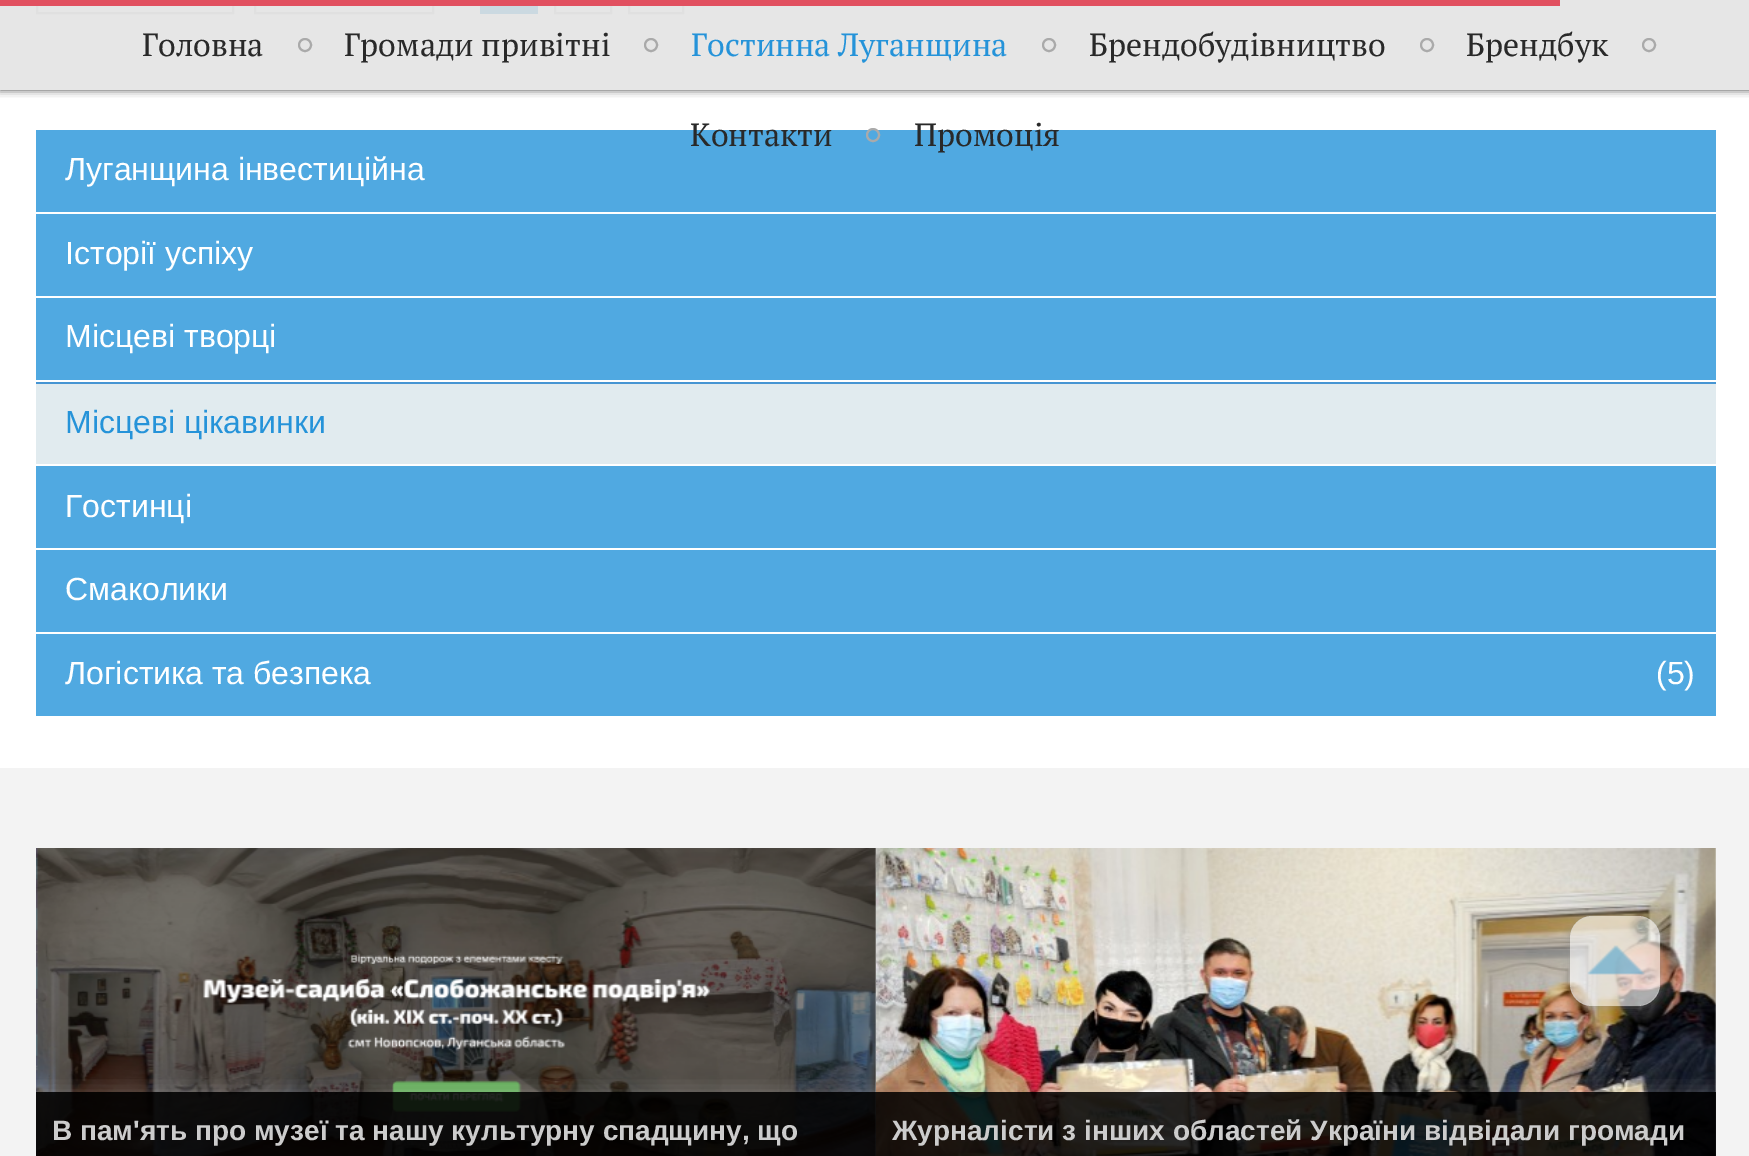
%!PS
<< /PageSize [1749 1156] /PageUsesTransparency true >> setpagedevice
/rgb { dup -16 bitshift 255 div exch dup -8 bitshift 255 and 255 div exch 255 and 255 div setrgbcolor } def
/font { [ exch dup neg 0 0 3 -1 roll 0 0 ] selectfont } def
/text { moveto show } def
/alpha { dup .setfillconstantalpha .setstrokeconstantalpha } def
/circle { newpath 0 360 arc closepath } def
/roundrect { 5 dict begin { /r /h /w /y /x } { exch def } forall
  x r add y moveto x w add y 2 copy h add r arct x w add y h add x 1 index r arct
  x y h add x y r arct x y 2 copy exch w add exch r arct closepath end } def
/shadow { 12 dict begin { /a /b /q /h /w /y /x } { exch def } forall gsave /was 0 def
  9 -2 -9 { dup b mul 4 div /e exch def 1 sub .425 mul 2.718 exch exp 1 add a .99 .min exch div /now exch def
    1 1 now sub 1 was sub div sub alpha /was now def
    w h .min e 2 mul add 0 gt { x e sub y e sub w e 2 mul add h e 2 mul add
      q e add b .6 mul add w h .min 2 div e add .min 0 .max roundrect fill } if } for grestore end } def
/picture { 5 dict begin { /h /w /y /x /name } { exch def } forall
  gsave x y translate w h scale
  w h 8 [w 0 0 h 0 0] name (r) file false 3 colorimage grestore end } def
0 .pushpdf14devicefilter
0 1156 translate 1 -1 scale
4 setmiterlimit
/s1 { /PTSerif-Regular 32 font 16#292929 rgb } def
/s2 { /PTSerif-Regular 32 font 16#2593D9 rgb } def
/s3 { /LiberationSans-Regular 32 font 16#FFFFFF rgb } def
/s4 { /LiberationSans-Regular 32 font 16#2593D9 rgb } def
/s5 { /LiberationSans-Bold 28 font 16#CCCCCC rgb } def
16#FFFFFF rgb
0 0 1749 1156 rectfill
16#E6E6E6 rgb
0 0 1749 90 rectfill
16#E0E0E0 rgb
2 setlinewidth
37 -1 196 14 rectstroke
255 -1 178 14 rectstroke
16#CBD9E1 rgb
480 6 58 8 rectfill
16#E0E0E0 rgb
555 -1 56 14 rectstroke
629 -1 54 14 rectstroke
gsave
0 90 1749 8 rectclip
16#000000 rgb
0 0 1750 90 0 4 0.7 shadow
grestore
16#E15060 rgb
0 0 1560 6 rectfill
s1
(Головна) 142 56 text
16#AAAAAA rgb
305 45 6 circle stroke
s1
(Громади привітні) 344 56 text
16#AAAAAA rgb
651 45 6 circle stroke
s2
(Гостинна Луганщина) 691 56 text
16#AAAAAA rgb
1049 45 6 circle stroke
s1
(Брендобудівництво) 1089 56 text
16#AAAAAA rgb
1427 45 6 circle stroke
s1
(Брендбук) 1466 56 text
16#AAAAAA rgb
1649 45 6 circle stroke
16#50A9E1 rgb
36 130 1680 82 rectfill
s1
(Контакти) 690 146 text
16#AAAAAA rgb
873 135 6 circle stroke
s1
(Промоція) 914 146 text
s3
(Луганщина інвестиційна) 65 180 text
16#50A9E1 rgb
36 214 1680 82 rectfill
s3
(Історії успіху) 65 264 text
16#50A9E1 rgb
36 298 1680 82 rectfill
s3
(Місцеві творці) 65 347 text
16#E1EBEF rgb
36 384 1680 80 rectfill
16#4695D3 rgb
36 382 1680 2 rectfill
s4
(Місцеві цікавинки) 65 433 text
16#50A9E1 rgb
36 466 1680 82 rectfill
s3
(Гостинці) 65 517 text
16#50A9E1 rgb
36 550 1680 82 rectfill
s3
(Смаколики) 65 600 text
16#50A9E1 rgb
36 634 1680 82 rectfill
s3
(Логістика та безпека) 65 684 text
(\(5\)) 1656 684 text
16#F3F3F3 rgb
0 768 1749 388 rectfill
(pic1.raw) 36 848 840 308 picture
gsave
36 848 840 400 rectclip
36 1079 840 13 rectclip
16#FFFFFF rgb
36 1092 840 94 0 10 0.2 shadow
grestore
0.85 alpha
16#000000 rgb
36 1092 840 64 rectfill
1 alpha
s5
(В пам'ять про музеї та нашу культурну спадщину, що) 52 1140 text
(pic2.raw) 876 848 840 308 picture
gsave
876 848 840 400 rectclip
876 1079 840 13 rectclip
16#FFFFFF rgb
876 1092 840 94 0 10 0.2 shadow
grestore
0.85 alpha
16#000000 rgb
876 1092 840 64 rectfill
1 alpha
s5
(Журналісти з інших областей України відвідали громади) 892 1140 text
gsave
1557 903 moveto 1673 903 lineto 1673 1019 lineto 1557 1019 lineto closepath 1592 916 moveto 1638 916 lineto 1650 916 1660 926 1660 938 curveto 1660 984 lineto 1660 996 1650 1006 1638 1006 curveto 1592 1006 lineto 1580 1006 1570 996 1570 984 curveto 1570 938 lineto 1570 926 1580 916 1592 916 curveto closepath eoclip newpath
16#909090 rgb
1570 916 90 90 22 4 0.6 shadow
grestore
0.6 alpha
16#FFFFFF rgb
1570 916 90 90 22 roundrect fill
1 alpha
(pic3.raw) 1587 945 58 30 picture
.poppdf14devicefilter showpage
